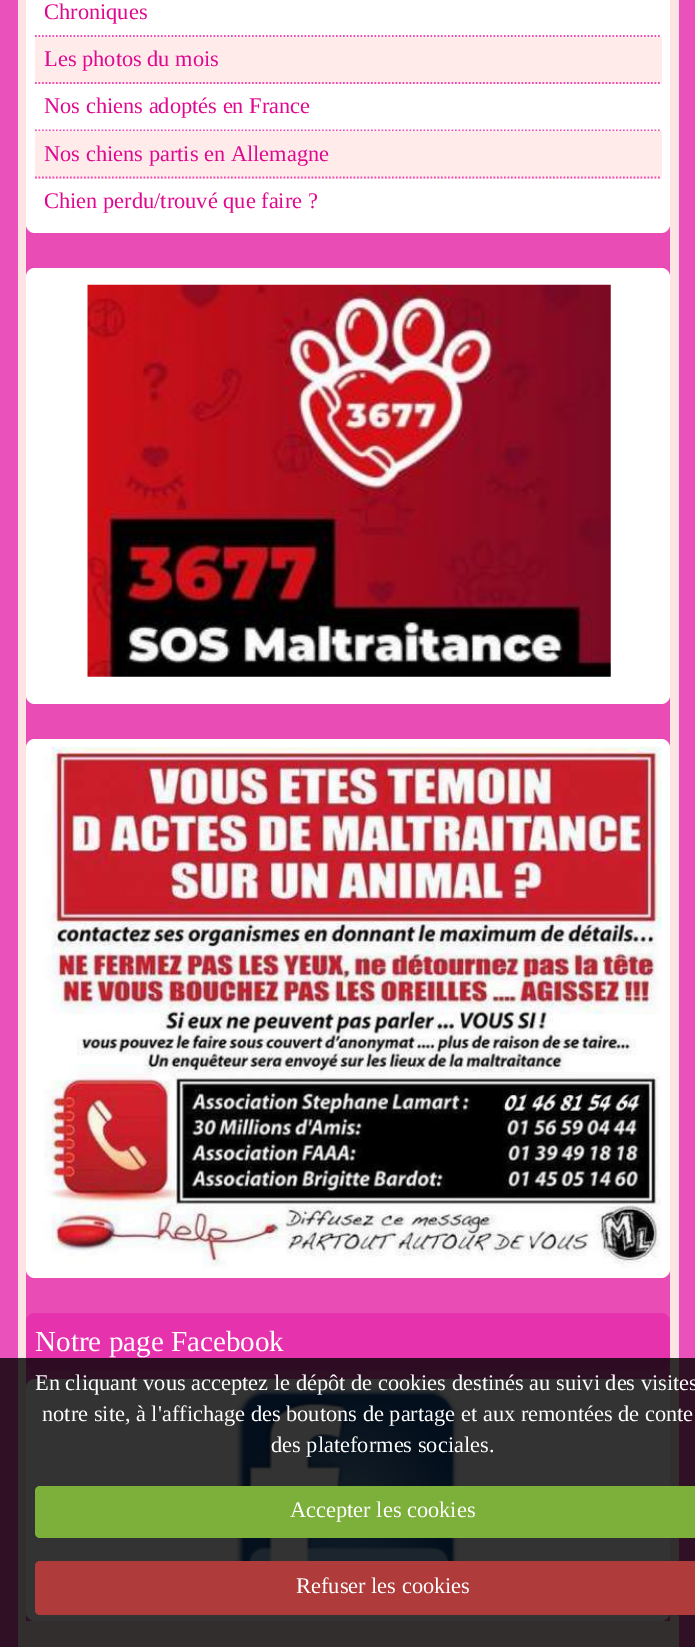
%!PS
<< /PageSize [695 1647] /PageUsesTransparency true >> setpagedevice
/rgb { dup -16 bitshift 255 div exch dup -8 bitshift 255 and 255 div exch 255 and 255 div setrgbcolor } def
/font { [ exch dup neg 0 0 3 -1 roll 0 0 ] selectfont } def
/text { moveto show } def
/alpha { dup .setfillconstantalpha .setstrokeconstantalpha } def
/roundrect { 5 dict begin { /r /h /w /y /x } { exch def } forall
  x r add y moveto x w add y 2 copy h add r arct x w add y h add x 1 index r arct
  x y h add x y r arct x y 2 copy exch w add exch r arct closepath end } def
/picture { 5 dict begin { /h /w /y /x /name } { exch def } forall
  gsave x y translate w h scale
  w h 8 [w 0 0 h 0 0] name (r) file false 3 colorimage grestore end } def
0 .pushpdf14devicefilter
0 1647 translate 1 -1 scale
4 setmiterlimit
/s1 { /LiberationSerif-Regular 22.4 font 16#DF098F rgb } def
/s2 { /LiberationSerif-Regular 29.1 font 16#FFFFFF rgb } def
/s3 { /LiberationSerif-Regular 22.4 font 16#FFFFFF rgb } def
16#EA51BA rgb
0 0 695 1647 rectfill
16#FCE4E4 rgb
18 0 661 1647 rectfill
16#EA4CB5 rgb
26 224 644 1397 rectfill
16#FFFFFF rgb
26 -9 644 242 9 roundrect fill
16#EA51BA rgb
1.8 setlinewidth
[1.75 1.75] 0 setdash
35 36 moveto 661.5 36 lineto stroke
s1
(Chroniques) 44 19 text
16#FEEBEA rgb
35 37 627 47 rectfill
16#EA4DB7 rgb
35 83 moveto 661.5 83 lineto stroke
s1
(Les photos du mois) 44 66 text
16#EA51BA rgb
35 130.5 moveto 661.5 130.5 lineto stroke
s1
(Nos chiens adoptés en France) 44 113 text
16#FEEBEA rgb
35 131 627 48 rectfill
16#EA4DB7 rgb
35 177.5 moveto 661.5 177.5 lineto stroke
s1
(Nos chiens partis en Allemagne) 44 161 text
(Chien perdu/trouvé que faire ?) 44 208 text
16#FFFFFF rgb
26 268 644 436 9 roundrect fill
(pic1.raw) 87 284 524 393 picture
26 739 644 539 9 roundrect fill
(pic2.raw) 44 746 618 522 picture
16#E732AE rgb
26 1313 644 57 9 roundrect fill
s2
(Notre page Facebook) 35 1351 text
26 1379 644 242 9 roundrect fill
(pic3.raw) 236 1387 222 174 picture
0.8 alpha
16#000000 rgb
0 1358 695 289 rectfill
1 alpha
s3
(En cliquant vous acceptez le dépôt de cookies destinés au suivi des visites) 35 1390 text
(notre site, à l'affichage des boutons de partage et aux remontées de conte) 42 1421 text
(des plateformes sociales.) 271 1452 text
16#7DAF3B rgb
35 1486 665 52 5 roundrect fill
s3
(Accepter les cookies) 290 1517 text
16#AF3B3B rgb
35 1561 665 54 5 roundrect fill
s3
(Refuser les cookies) 296 1593 text
.poppdf14devicefilter showpage
